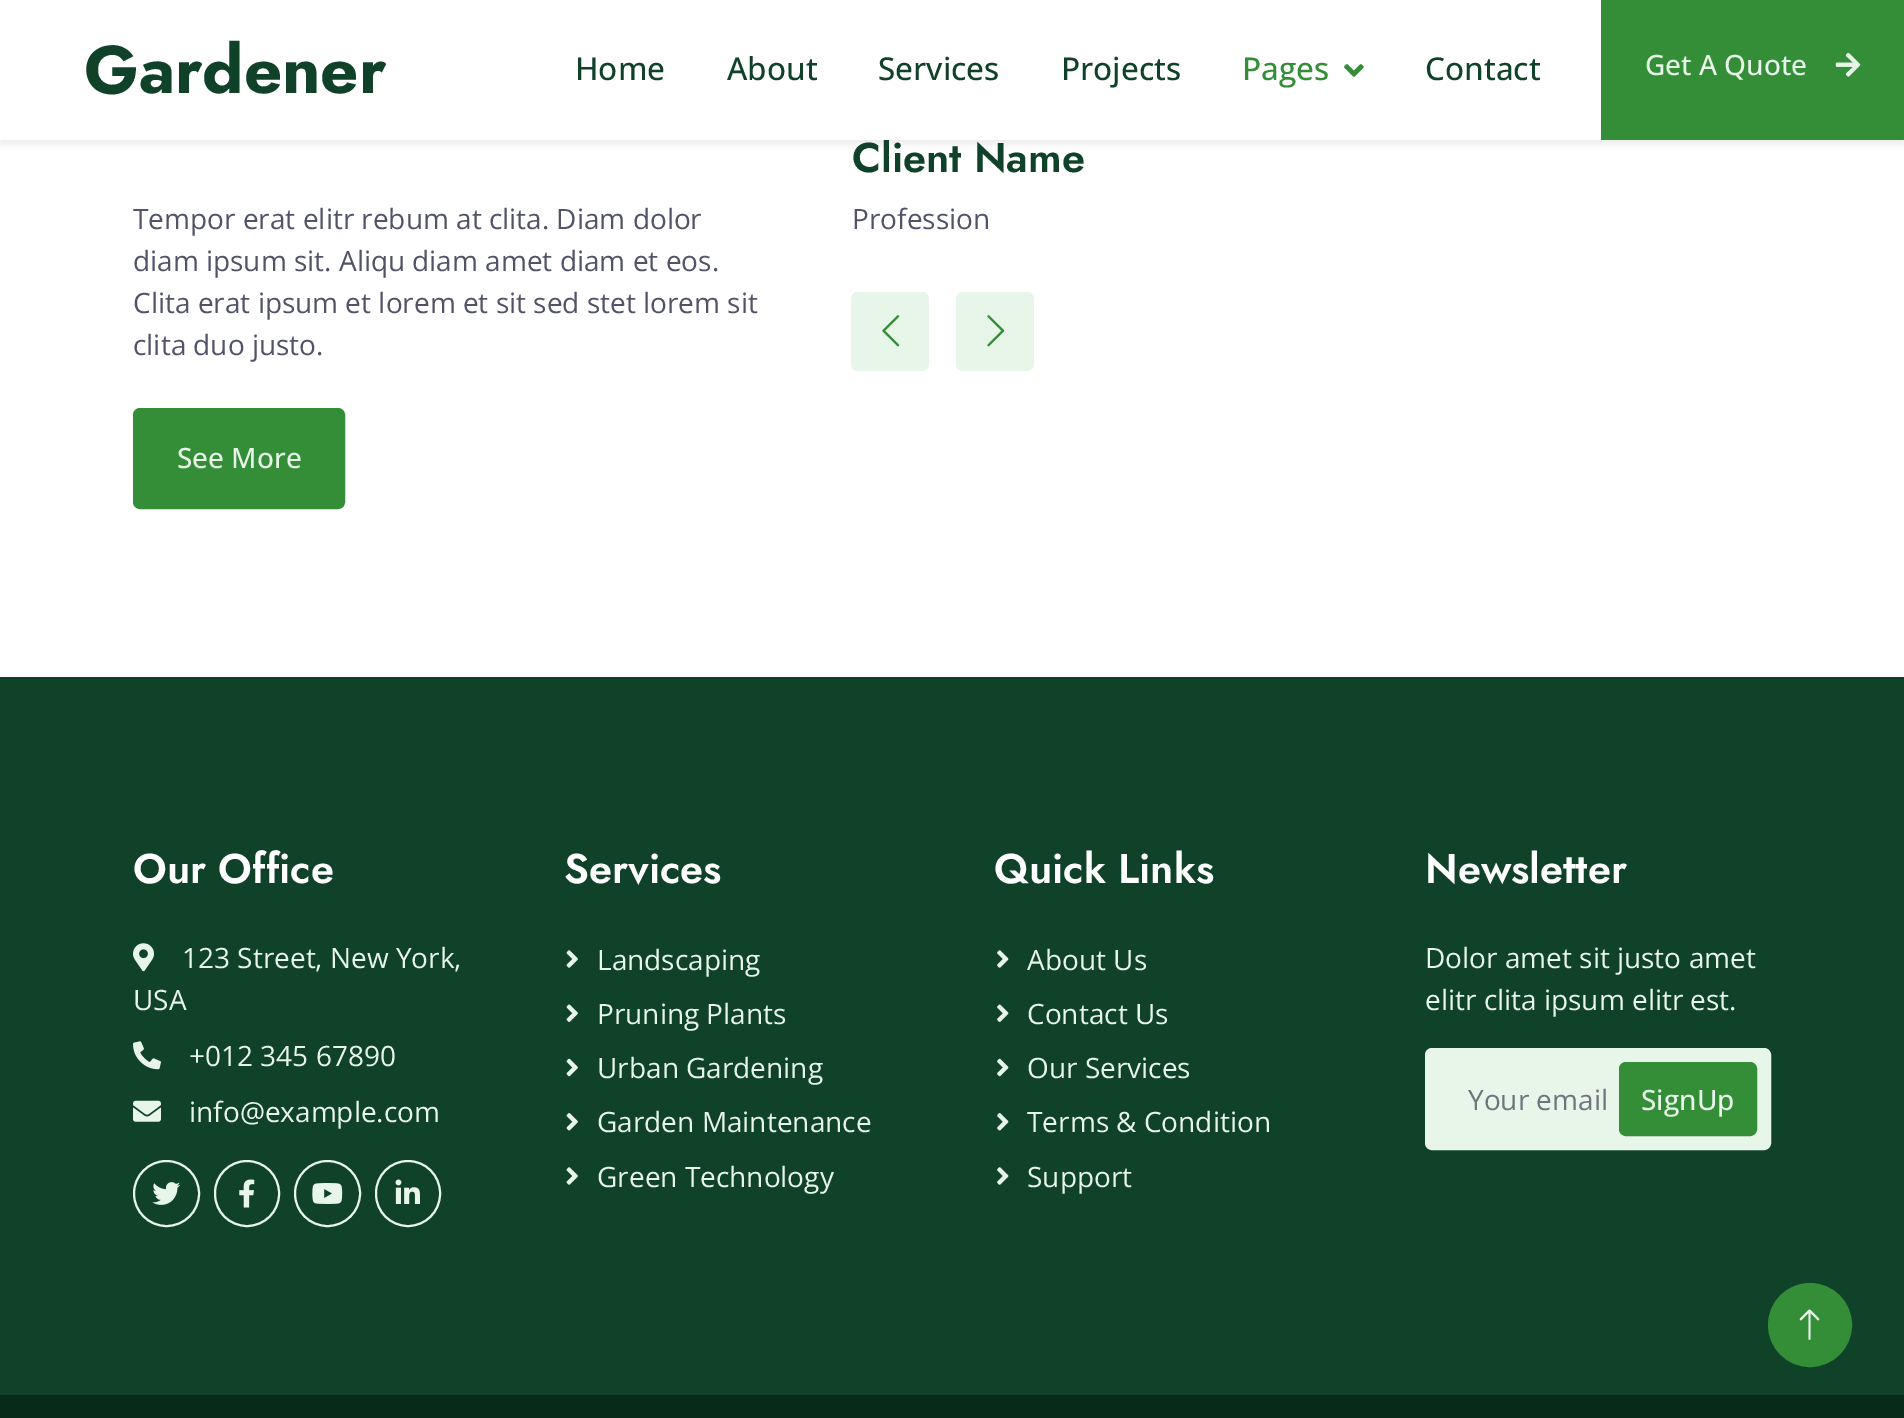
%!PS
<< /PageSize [1904 1418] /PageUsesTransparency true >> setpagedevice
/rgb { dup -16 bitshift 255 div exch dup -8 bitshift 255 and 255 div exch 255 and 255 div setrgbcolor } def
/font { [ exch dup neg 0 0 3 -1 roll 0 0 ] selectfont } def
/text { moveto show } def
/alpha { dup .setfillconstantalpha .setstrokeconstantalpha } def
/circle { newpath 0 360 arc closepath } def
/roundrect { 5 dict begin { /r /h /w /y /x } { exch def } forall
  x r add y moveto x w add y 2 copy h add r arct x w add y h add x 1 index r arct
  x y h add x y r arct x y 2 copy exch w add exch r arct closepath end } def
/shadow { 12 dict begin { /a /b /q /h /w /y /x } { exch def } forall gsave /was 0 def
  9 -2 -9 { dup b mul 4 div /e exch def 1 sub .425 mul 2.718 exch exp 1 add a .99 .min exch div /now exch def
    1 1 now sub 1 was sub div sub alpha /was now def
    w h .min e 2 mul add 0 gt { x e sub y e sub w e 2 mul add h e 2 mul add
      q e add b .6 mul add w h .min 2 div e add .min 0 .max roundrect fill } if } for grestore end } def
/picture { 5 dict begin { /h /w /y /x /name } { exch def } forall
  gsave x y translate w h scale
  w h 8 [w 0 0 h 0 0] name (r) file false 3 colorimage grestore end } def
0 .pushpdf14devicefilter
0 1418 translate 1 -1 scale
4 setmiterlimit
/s1 { /Jost-SemiBold 41.5 font 16#0F4229 rgb } def
/s2 { /Jost-Bold 67 font 16#0F4229 rgb } def
/s3 { /OpenSans-Medium 31.5 font 16#0F4229 rgb } def
/s4 { /OpenSans-Medium 31.5 font 16#348E38 rgb } def
/s5 { /OpenSans-Medium 28 font 16#E8F5E9 rgb } def
/s6 { /OpenSans-Regular 28 font 16#525368 rgb } def
/s7 { /Jost-SemiBold 41.5 font 16#FFFFFF rgb } def
/s8 { /OpenSans-Regular 28 font 16#E8F5E9 rgb } def
/s9 { /OpenSans-Regular 28 font 16#6C757D rgb } def
16#FFFFFF rgb
0 0 1904 1418 rectfill
16#000000 rgb
0 4 1904 140 0 3.5 0.07 shadow
s1
(Client Name) 852 172 text
16#FFFFFF rgb
0 0 1601 140 rectfill
s2
(Gardener) 84 93 text
s3
(Home) 575 80 text
(About) 727 80 text
(Services) 878 80 text
(Projects) 1061 80 text
s4
(Pages) 1242 80 text
(pic1.raw) 1344 64 20 13 picture
s3
(Contact) 1425 80 text
16#348E38 rgb
1601 0 303 140 rectfill
s5
(Get A Quote) 1645 75 text
(pic2.raw) 1835 52 26 25 picture
s6
(Profession) 852 229 text
16#E8F5E9 rgb
851 292 78 79 7 roundrect fill
(pic3.raw) 882 315 18 32 picture
956 292 78 79 7 roundrect fill
(pic4.raw) 987 315 18 32 picture
s6
(Tempor erat elitr rebum at clita. Diam dolor) 133 229 text
(diam ipsum sit. Aliqu diam amet diam et eos.) 133 271 text
(Clita erat ipsum et lorem et sit sed stet lorem sit) 133 313 text
(clita duo justo.) 133 355 text
16#348E38 rgb
134 409 210 99 6 roundrect gsave fill grestore
2 setlinewidth
stroke
s5
(See More) 177 468 text
16#0F4229 rgb
0 677 1904 718 rectfill
s7
(Our Office) 133 883 text
(pic5.raw) 133 943 21 29 picture
s8
(123 Street, New York,) 182 968 text
(USA) 133 1010 text
(pic6.raw) 133 1041 28 29 picture
(+012 345 67890) 189 1066 text
(pic7.raw) 133 1100 28 22 picture
(info@example.com) 189 1122 text
166.5 1193.5 32.5 circle stroke
(pic8.raw) 152 1182 29 23 picture
215 1161 64 65 32 roundrect stroke
(pic9.raw) 239 1179 16 29 picture
327.5 1193.5 32.5 circle stroke
(pic10.raw) 312 1183 31 21 picture
376 1161 64 65 32 roundrect stroke
(pic11.raw) 395 1179 25 25 picture
s7
(Services) 564 883 text
(pic12.raw) 566 950 12 18 picture
s8
(Landscaping) 597 970 text
(pic13.raw) 566 1004 12 18 picture
(Pruning Plants) 597 1024 text
(pic14.raw) 566 1058 12 19 picture
(Urban Gardening) 597 1078 text
(pic15.raw) 566 1113 12 18 picture
(Garden Maintenance) 597 1132 text
(pic12.raw) 566 1167 12 18 picture
(Green Technology) 597 1187 text
s7
(Quick Links) 994 883 text
(pic16.raw) 997 950 12 18 picture
s8
(About Us) 1027 970 text
(pic17.raw) 997 1004 12 18 picture
(Contact Us) 1027 1024 text
(pic18.raw) 997 1058 12 19 picture
(Our Services) 1027 1078 text
(pic19.raw) 997 1113 12 18 picture
(Terms & Condition) 1027 1132 text
(pic16.raw) 997 1167 12 18 picture
(Support) 1027 1187 text
s7
(Newsletter) 1425 883 text
s8
(Dolor amet sit justo amet) 1425 968 text
(elitr clita ipsum elitr est.) 1425 1010 text
1426 1049 344 100 6 roundrect gsave fill grestore
stroke
s9
(Your email) 1468 1110 text
16#348E38 rgb
1620 1063 136 72 6 roundrect gsave fill grestore
stroke
s5
(SignUp) 1641 1110 text
16#348E38 rgb
1810 1325 41 circle gsave fill grestore
stroke
(pic20.raw) 1799 1309 21 31 picture
16#072A19 rgb
0 1395 1904 23 rectfill
.poppdf14devicefilter showpage
